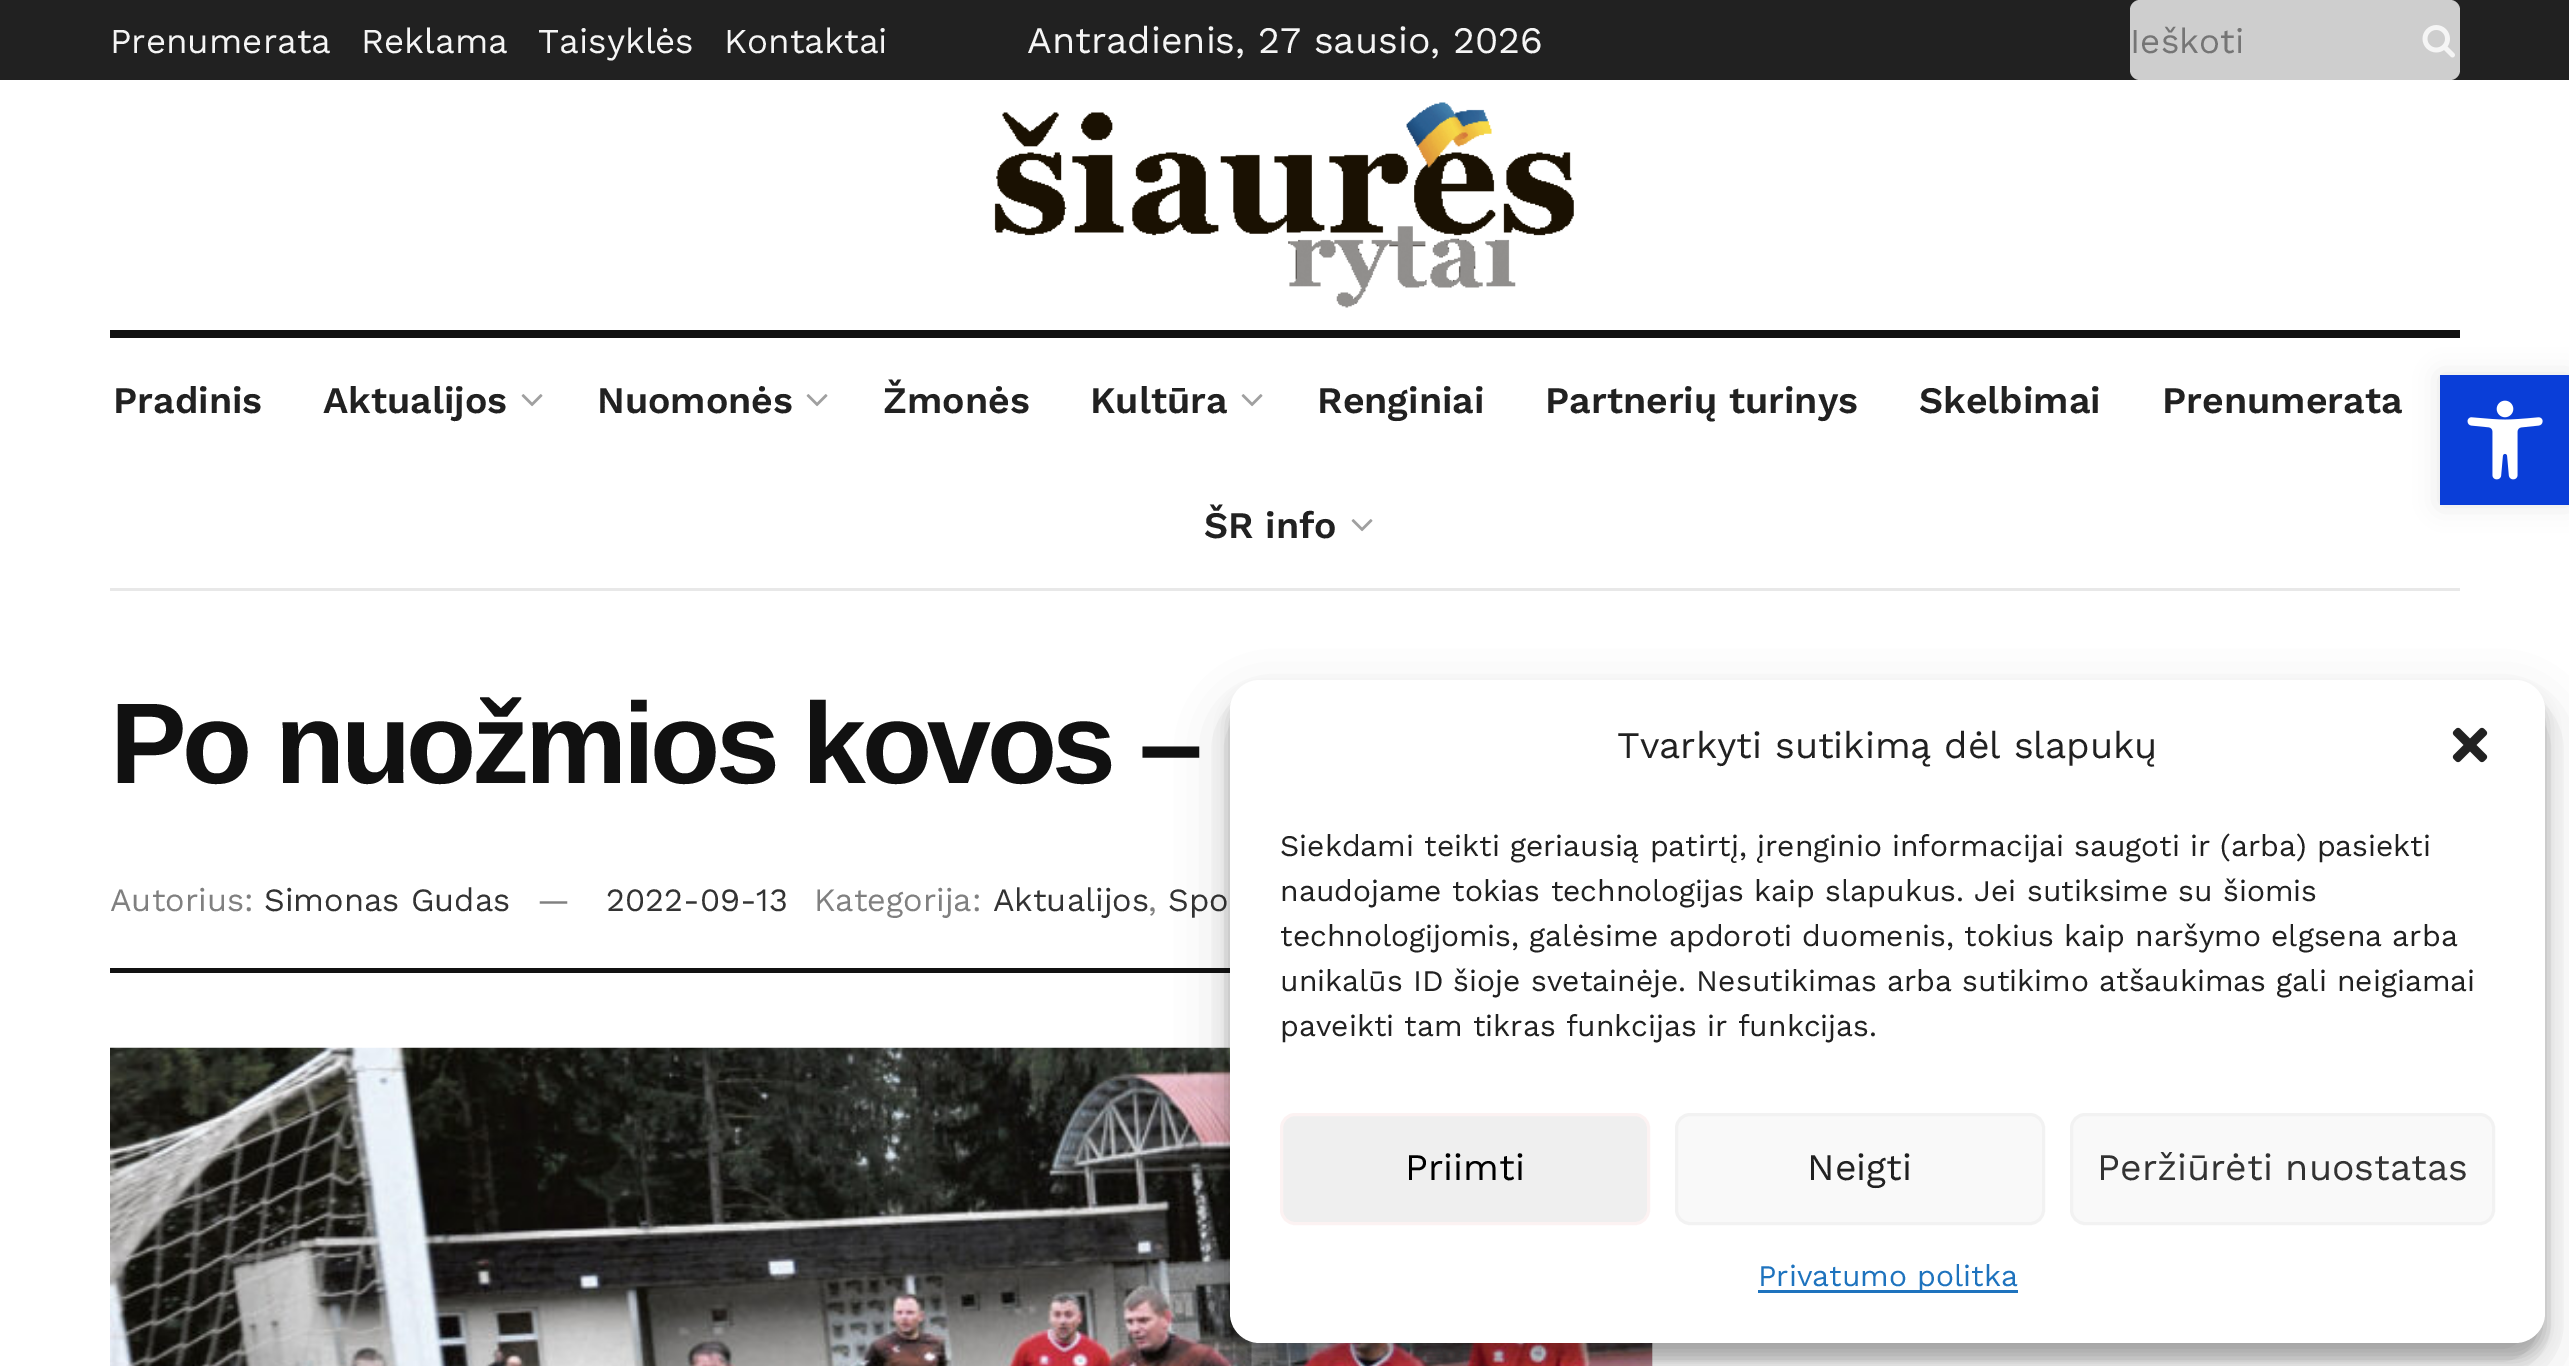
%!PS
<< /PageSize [2569 1366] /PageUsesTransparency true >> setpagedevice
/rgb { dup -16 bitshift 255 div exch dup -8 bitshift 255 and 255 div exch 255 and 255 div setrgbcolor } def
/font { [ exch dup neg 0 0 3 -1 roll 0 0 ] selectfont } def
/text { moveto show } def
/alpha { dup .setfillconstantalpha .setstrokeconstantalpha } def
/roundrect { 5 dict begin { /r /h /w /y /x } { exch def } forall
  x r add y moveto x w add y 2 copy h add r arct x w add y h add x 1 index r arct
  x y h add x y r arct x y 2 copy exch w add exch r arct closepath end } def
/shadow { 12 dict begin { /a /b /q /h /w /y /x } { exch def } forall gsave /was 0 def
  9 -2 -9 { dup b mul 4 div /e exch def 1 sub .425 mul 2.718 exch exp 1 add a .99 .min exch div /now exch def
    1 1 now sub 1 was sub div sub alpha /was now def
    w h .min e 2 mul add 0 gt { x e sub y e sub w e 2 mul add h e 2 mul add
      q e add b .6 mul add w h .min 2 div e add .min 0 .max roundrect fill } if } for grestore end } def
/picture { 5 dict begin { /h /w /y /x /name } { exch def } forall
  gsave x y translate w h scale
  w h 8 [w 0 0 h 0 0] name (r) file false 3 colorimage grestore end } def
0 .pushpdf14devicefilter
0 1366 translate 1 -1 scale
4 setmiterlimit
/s1 { /WorkSans-Regular 35 font 16#F5F5F5 rgb } def
/s2 { /WorkSans-Regular 37.5 font 16#F5F5F5 rgb } def
/s3 { /WorkSans-Regular 35 font 16#757575 rgb } def
/s4 { /WorkSans-SemiBold 37.5 font 16#212121 rgb } def
/s5 { /WorkSans-Regular 32.5 font 16#808080 rgb } def
/s6 { /WorkSans-Regular 32.5 font 16#333333 rgb } def
/s7 { /WorkSans-Regular 37.5 font 16#212121 rgb } def
/s8 { /WorkSans-Regular 30 font 16#212121 rgb } def
/s9 { /WorkSans-Regular 37.5 font 16#000000 rgb } def
/s10 { /WorkSans-Regular 37.5 font 16#333333 rgb } def
/s11 { /WorkSans-Regular 30 font 16#1E73BE rgb } def
16#FFFFFF rgb
0 0 2569 1366 rectfill
16#212121 rgb
0 0 2569 80 rectfill
s1
(Prenumerata) 110 53 text
(Reklama) 361 53 text
(Taisyklės) 538 53 text
(Kontaktai) 724 53 text
s2
(Antradienis, 27 sausio, 2026) 1027 53 text
16#CECECE rgb
2130 0 330 80 10 roundrect fill
s3
(Ieškoti) 2130 53 text
(pic1.raw) 2422 25 33 33 picture
(pic2.raw) 994 102 580 206 picture
16#111111 rgb
110 330 2350 8 rectfill
16#E8E8E8 rgb
110 588 2350 3 rectfill
s4
(Pradinis) 113 413 text
(Aktualijos) 323 413 text
(pic3.raw) 521 394 22 13 picture
(Nuomonės) 597 413 text
(pic3.raw) 806 394 22 13 picture
(Žmonės) 883 413 text
(Kultūra) 1090 413 text
(pic3.raw) 1241 394 22 13 picture
(Renginiai) 1317 413 text
(Partnerių turinys) 1545 413 text
(Skelbimai) 1919 413 text
(Prenumerata) 2162 413 text
(ŠR info) 1204 538 text
(pic3.raw) 1351 519 22 13 picture
16#111111 rgb
110 968 1120 5 rectfill
/LiberationSans-Bold 115 font
110 783 moveto -4.6 0 (Po nuožmios kovos –) ashow
s5
(Autorius:) 110 911 text
s6
(Simonas Gudas) 264 911 text
s5
(—) 537 911 text
s6
(2022-09-13) 606 911 text
s5
(Kategorija:) 814 911 text
s6
(Aktualijos) 993 911 text
s5
(,) 1148 911 text
s6
(Spo) 1168 911 text
16#F7F7F7 rgb
1652 1343 1 23 rectfill
(pic4.raw) 110 1047 1543 319 picture
16#000000 rgb
2440 375 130 130 0 12.5 0.1 shadow
16#0A3ED8 rgb
2440 375 129 130 rectfill
(pic5.raw) 2467 400 76 80 picture
16#000000 rgb
1230 695 1315 663 30 7.5 0.23 shadow
1230 705 1315 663 30 25 0.19 shadow
16#FFFFFF rgb
1230 680 1315 663 30 roundrect fill
s7
(Tvarkyti sutikimą dėl slapukų) 1617 758 text
(pic6.raw) 2452 727 36 36 picture
s8
(Siekdami teikti geriausią patirtį, įrenginio informacijai saugoti ir \(arba\) pasiekti) 1280 856 text
(naudojame tokias technologijas kaip slapukus. Jei sutiksime su šiomis) 1280 901 text
(technologijomis, galėsime apdoroti duomenis, tokius kaip naršymo elgsena arba) 1280 946 text
(unikalūs ID šioje svetainėje. Nesutikimas arba sutikimo atšaukimas gali neigiamai) 1280 991 text
(paveikti tam tikras funkcijas ir funkcijas.) 1280 1036 text
16#EFEFEF rgb
1281.5 1114.5 367 109 13.5 roundrect gsave fill grestore
16#FCF2F2 rgb
3 setlinewidth
stroke
s9
(Priimti) 1405 1180 text
16#F9F9F9 rgb
1676.5 1114.5 367 109 13.5 roundrect gsave fill grestore
16#F2F2F2 rgb
stroke
s7
(Neigti) 1807 1180 text
16#F9F9F9 rgb
2071.5 1114.5 422 109 13.5 roundrect gsave fill grestore
16#F2F2F2 rgb
stroke
s10
(Peržiūrėti nuostatas) 2097 1180 text
16#1E73BE rgb
1758 1290 260 3 rectfill
s11
(Privatumo politka) 1758 1286 text
.poppdf14devicefilter showpage
